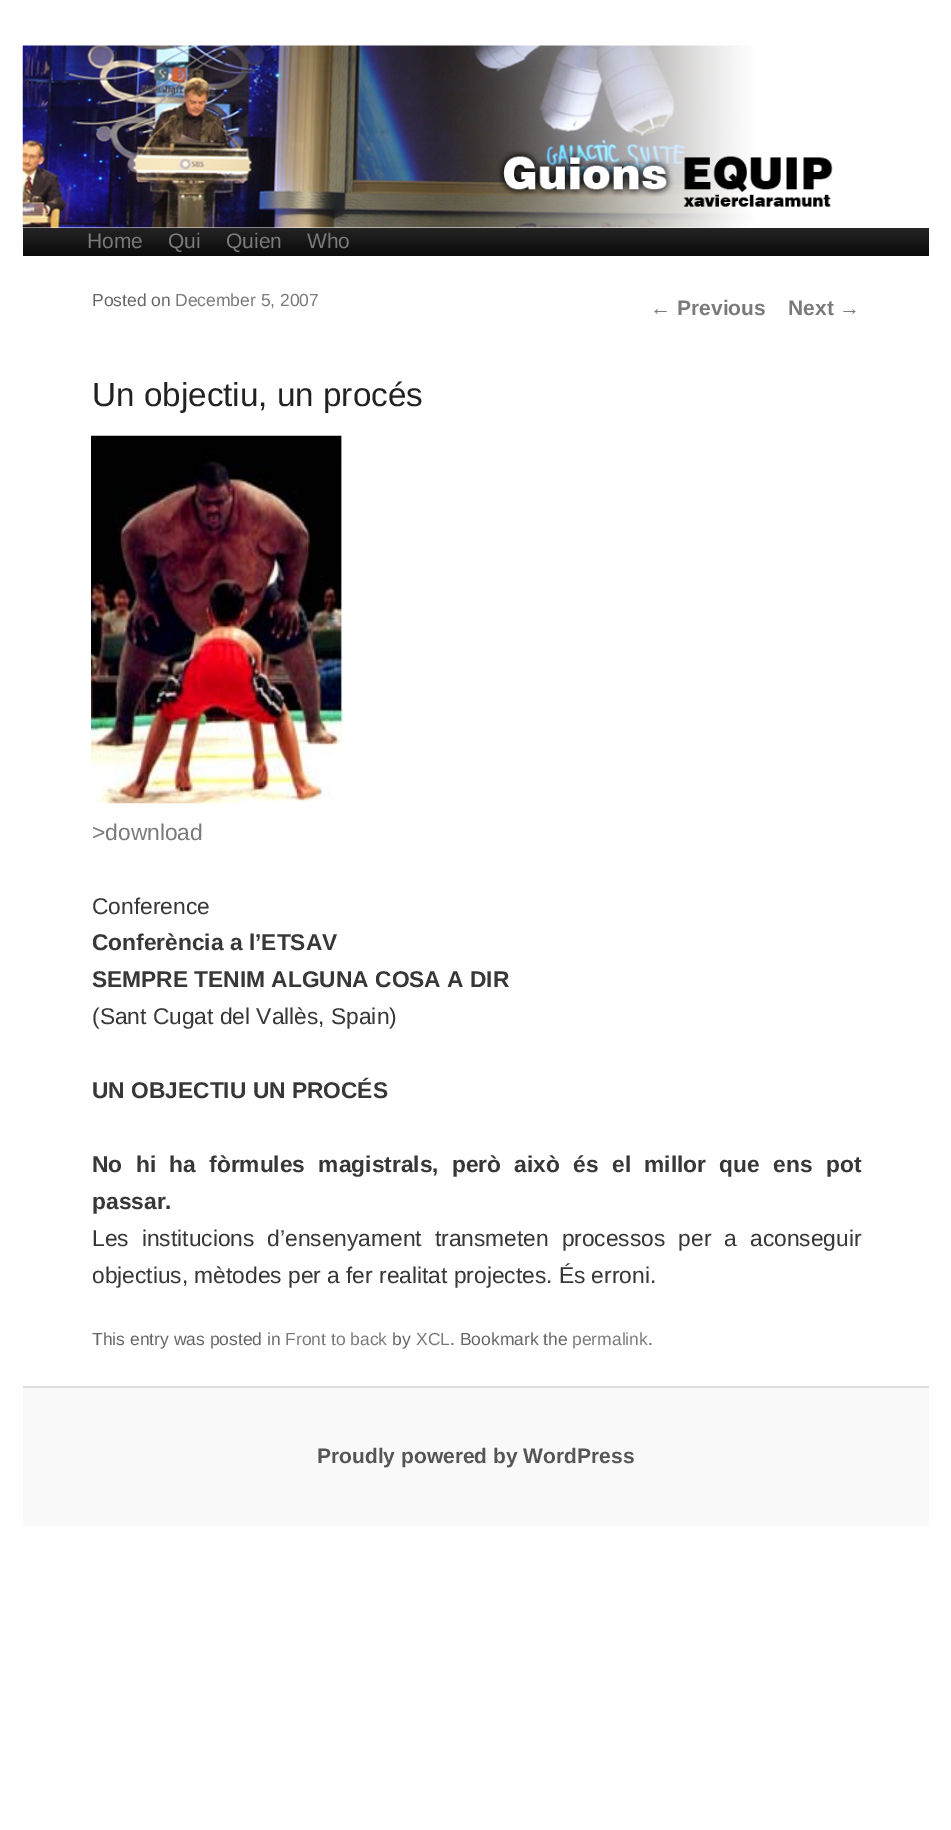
%!PS
<< /PageSize [951 1830] >> setpagedevice
/rgb { dup -16 bitshift 255 div exch dup -8 bitshift 255 and 255 div exch 255 and 255 div setrgbcolor } def
/font { [ exch dup neg 0 0 3 -1 roll 0 0 ] selectfont } def
/text { moveto show } def
/picture { 5 dict begin { /h /w /y /x /name } { exch def } forall
  gsave x y translate w h scale
  w h 8 [w 0 0 h 0 0] name (r) file false 3 colorimage grestore end } def
0 1830 translate 1 -1 scale
4 setmiterlimit
/s1 { /LiberationSans-Regular 21 font 16#7A7A7A rgb } def
/s2 { /LiberationSans-Regular 17.5 font 16#666666 rgb } def
/s3 { /LiberationSans-Regular 17.5 font 16#7A7A7A rgb } def
/s4 { /LiberationSans-Regular 33.25 font 16#222222 rgb } def
/s5 { /LiberationSans-Regular 22.75 font 16#7A7A7A rgb } def
/s6 { /LiberationSans-Regular 22.75 font 16#373737 rgb } def
/s7 { /LiberationSans-Bold 22.75 font 16#373737 rgb } def
/s8 { /LiberationSans-Bold 21 font 16#7A7A7A rgb } def
/s9 { /LiberationSans-Bold 21 font 16#555555 rgb } def
16#FFFFFF rgb
0 0 951 1830 rectfill
(pic1.raw) 22 45 811 183 picture
gsave 23 228 moveto 929 228 lineto 929 256 lineto 23 256 lineto closepath clip newpath
<< /ShadingType 2 /ColorSpace /DeviceRGB /Coords [476 227 476 256] /Extend [true true] /Function << /FunctionType 2 /Domain [0 1] /C0 [0.145 0.145 0.145] /C1 [0.039 0.039 0.039] /N 1 >> >> shfill grestore
s1
(Home) 87 248 text
(Qui) 168 248 text
(Quien) 226 248 text
(Who) 307 248 text
s2
(Posted on) 92 306 text
s3
(December 5, 2007) 175 306 text
s4
(Un objectiu, un procés) 92 406 text
(pic2.raw) 91 435 253 369 picture
s5
(>download) 92 840 text
s6
(Conference) 92 914 text
s7
(Conferència a l’ETSAV) 92 950 text
(SEMPRE TENIM ALGUNA COSA A DIR) 92 987 text
s6
(\(Sant Cugat del Vallès, Spain\)) 92 1024 text
s7
(UN OBJECTIU UN PROCÉS) 92 1098 text
92 1172 moveto 7 0 32 (No hi ha fòrmules magistrals, però això és el millor que ens pot) widthshow
(passar.) 92 1209 text
/LiberationSans-Regular 22.75 font
92 1246 moveto 6.75 0 32 (Les institucions d’ensenyament transmeten processos per a aconseguir) widthshow
(objectius, mètodes per a fer realitat projectes. És erroni.) 92 1283 text
s2
(This entry was posted in) 92 1345 text
s3
(Front to back) 285 1345 text
s2
(by) 392 1345 text
s3
(XCL) 416 1345 text
s2
(. Bookmark the) 450 1345 text
s3
(permalink) 572 1345 text
s2
(.) 648 1345 text
s1
(←) 650 315 text
s8
(Previous) 677 315 text
(Next) 788 315 text
s1
(→) 839 315 text
16#F9F9F9 rgb
23 1388 906 138 rectfill
16#DDDDDD rgb
23 1386 906 2 rectfill
s9
(Proudly powered by WordPress) 317 1463 text
showpage
